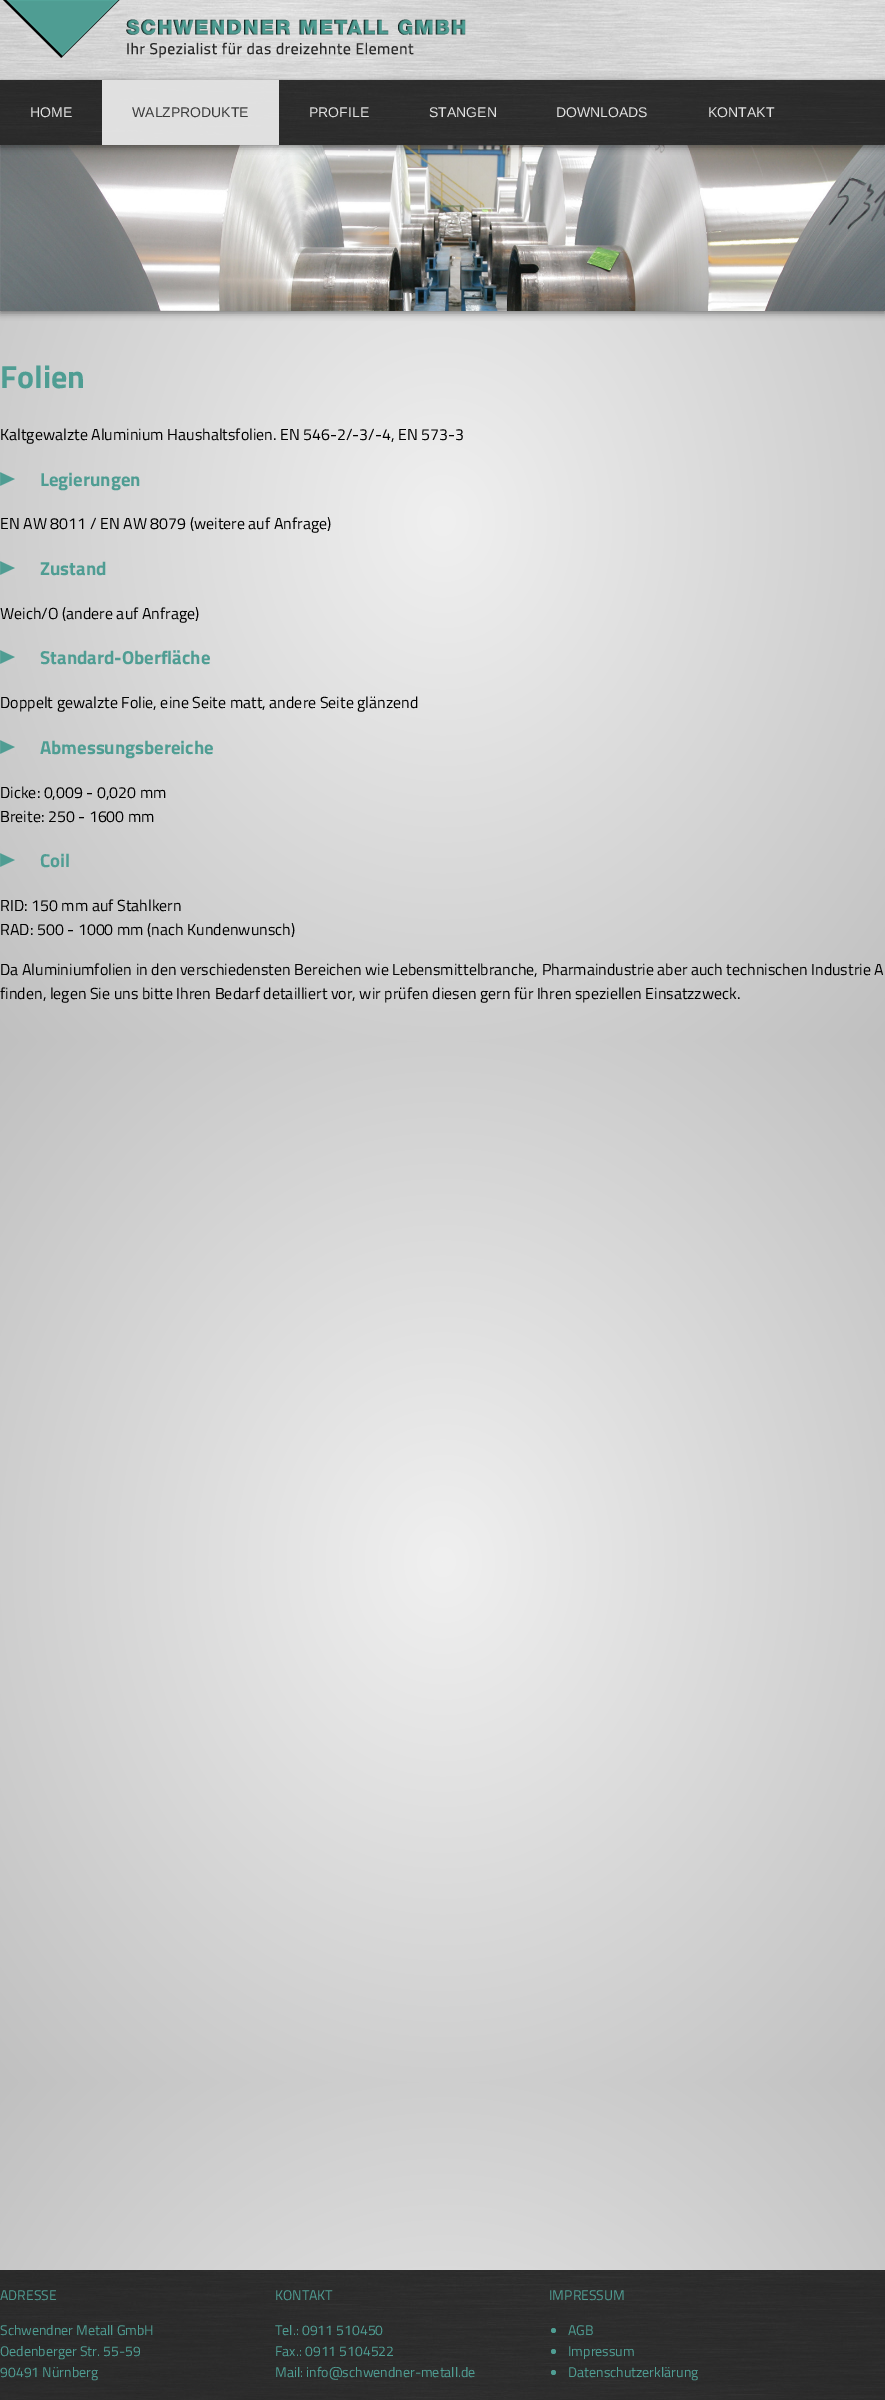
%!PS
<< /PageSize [885 2400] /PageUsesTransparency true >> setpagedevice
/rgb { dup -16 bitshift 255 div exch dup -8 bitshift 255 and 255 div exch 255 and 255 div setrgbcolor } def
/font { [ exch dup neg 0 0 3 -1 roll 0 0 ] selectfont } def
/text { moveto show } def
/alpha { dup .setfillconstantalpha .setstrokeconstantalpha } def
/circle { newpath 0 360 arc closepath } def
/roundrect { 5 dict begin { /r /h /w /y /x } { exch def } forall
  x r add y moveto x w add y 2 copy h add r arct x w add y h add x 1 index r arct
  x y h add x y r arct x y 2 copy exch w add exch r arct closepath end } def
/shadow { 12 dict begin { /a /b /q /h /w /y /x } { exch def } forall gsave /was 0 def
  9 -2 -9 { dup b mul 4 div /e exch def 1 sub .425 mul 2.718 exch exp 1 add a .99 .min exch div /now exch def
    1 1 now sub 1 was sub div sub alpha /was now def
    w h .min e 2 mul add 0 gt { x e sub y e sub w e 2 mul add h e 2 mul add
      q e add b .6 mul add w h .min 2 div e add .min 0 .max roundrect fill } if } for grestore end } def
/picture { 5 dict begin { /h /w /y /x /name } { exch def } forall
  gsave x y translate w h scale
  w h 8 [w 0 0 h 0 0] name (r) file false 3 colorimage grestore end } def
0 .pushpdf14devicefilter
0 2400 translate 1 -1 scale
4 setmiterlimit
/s1 { /LiberationSans-Regular 14 font 16#E1E1E1 rgb } def
/s2 { /LiberationSans-Regular 14 font 16#3C3C3C rgb } def
/s3 { /TitilliumWeb-Bold 32 font 16#4F9D93 rgb } def
/s4 { /TitilliumWeb-Regular 16 font 16#000000 rgb } def
/s5 { /TitilliumWeb-Bold 18.75 font 16#4F9D93 rgb } def
/s6 { /TitilliumWeb-Regular 14 font 16#4F9D93 rgb } def
16#FFFFFF rgb
0 0 885 2400 rectfill
gsave 0 311 moveto 885 311 lineto 885 1041 lineto 0 1041 lineto closepath clip newpath 443 521 translate 626 736 scale
<< /ShadingType 3 /ColorSpace /DeviceRGB /Coords [0 0 0 0 0 1] /Extend [true true] /Function << /FunctionType 2 /Domain [0 1] /C0 [0.941 0.941 0.941] /C1 [0.753 0.753 0.753] /N 1 >> >> shfill grestore
gsave 0 1041 moveto 885 1041 lineto 885 2082 lineto 0 2082 lineto closepath clip newpath 443 1562 translate 626 736 scale
<< /ShadingType 3 /ColorSpace /DeviceRGB /Coords [0 0 0 0 0 1] /Extend [true true] /Function << /FunctionType 2 /Domain [0 1] /C0 [0.941 0.941 0.941] /C1 [0.753 0.753 0.753] /N 1 >> >> shfill grestore
gsave 0 2082 moveto 885 2082 lineto 885 2270 lineto 0 2270 lineto closepath clip newpath 443 2603 translate 626 736 scale
<< /ShadingType 3 /ColorSpace /DeviceRGB /Coords [0 0 0 0 0 1] /Extend [true true] /Function << /FunctionType 2 /Domain [0 1] /C0 [0.941 0.941 0.941] /C1 [0.753 0.753 0.753] /N 1 >> >> shfill grestore
(pic1.raw) 0 0 885 80 picture
(pic2.raw) 3 0 463 58 picture
16#000000 rgb
0 147 885 166 0 3.5 0.45 shadow
(pic4.raw) 0 145 885 166 picture
0 82 885 65 0 3.5 0.45 shadow
(pic3.raw) 0 80 885 65 picture
s1
(HOME) 30 117 text
0.9 alpha
16#F4F4F4 rgb
102 80 177 65 rectfill
1 alpha
s2
(WALZPRODUKTE) 132 117 text
s1
(PROFILE) 309 117 text
(STANGEN) 429 117 text
(DOWNLOADS) 556 117 text
(KONTAKT) 708 117 text
s3
(Folien) 0 388 text
s4
(Kaltgewalzte Aluminium Haushaltsfolien. EN 546-2/-3/-4, EN 573-3) 0 440 text
(pic5.raw) 0 472 15 14 picture
s5
(Legierungen) 40 486 text
s4
(EN AW 8011 / EN AW 8079 \(weitere auf Anfrage\)) 0 529 text
(pic6.raw) 0 561 15 14 picture
s5
(Zustand) 40 575 text
s4
(Weich/O \(andere auf Anfrage\)) 0 619 text
(pic7.raw) 0 650 15 14 picture
s5
(Standard-Oberfläche) 40 664 text
s4
(Doppelt gewalzte Folie, eine Seite matt, andere Seite glänzend) 0 708 text
(pic8.raw) 0 740 15 14 picture
s5
(Abmessungsbereiche) 40 754 text
s4
(Dicke: 0,009 - 0,020 mm) 0 798 text
(Breite: 250 - 1600 mm) 0 822 text
(pic9.raw) 0 853 15 14 picture
s5
(Coil) 40 867 text
s4
(RID: 150 mm auf Stahlkern) 0 911 text
(RAD: 500 - 1000 mm \(nach Kundenwunsch\)) 0 935 text
(Da Aluminiumfolien in den verschiedensten Bereichen wie Lebensmittelbranche, Pharmaindustrie aber auch technischen Industrie A) 0 975 text
(finden, legen Sie uns bitte Ihren Bedarf detailliert vor, wir prüfen diesen gern für Ihren speziellen Einsatzzweck.) 0 999 text
(pic10.raw) 0 2270 885 130 picture
s6
(ADRESSE) 0 2300 text
(Schwendner Metall GmbH) 0 2335 text
(Oedenberger Str. 55-59) 0 2356 text
(90491 Nürnberg) 0 2377 text
(KONTAKT) 275 2300 text
(Tel.: 0911 510450) 275 2335 text
(Fax.: 0911 5104522) 275 2356 text
(Mail: info@schwendner-metall.de) 275 2377 text
(IMPRESSUM) 549 2300 text
553.5 2330.5 2.5 circle fill
(AGB) 568 2335 text
553.5 2351.5 2.5 circle fill
(Impressum) 568 2356 text
553.5 2372.5 2.5 circle fill
(Datenschutzerklärung) 568 2377 text
.poppdf14devicefilter showpage
